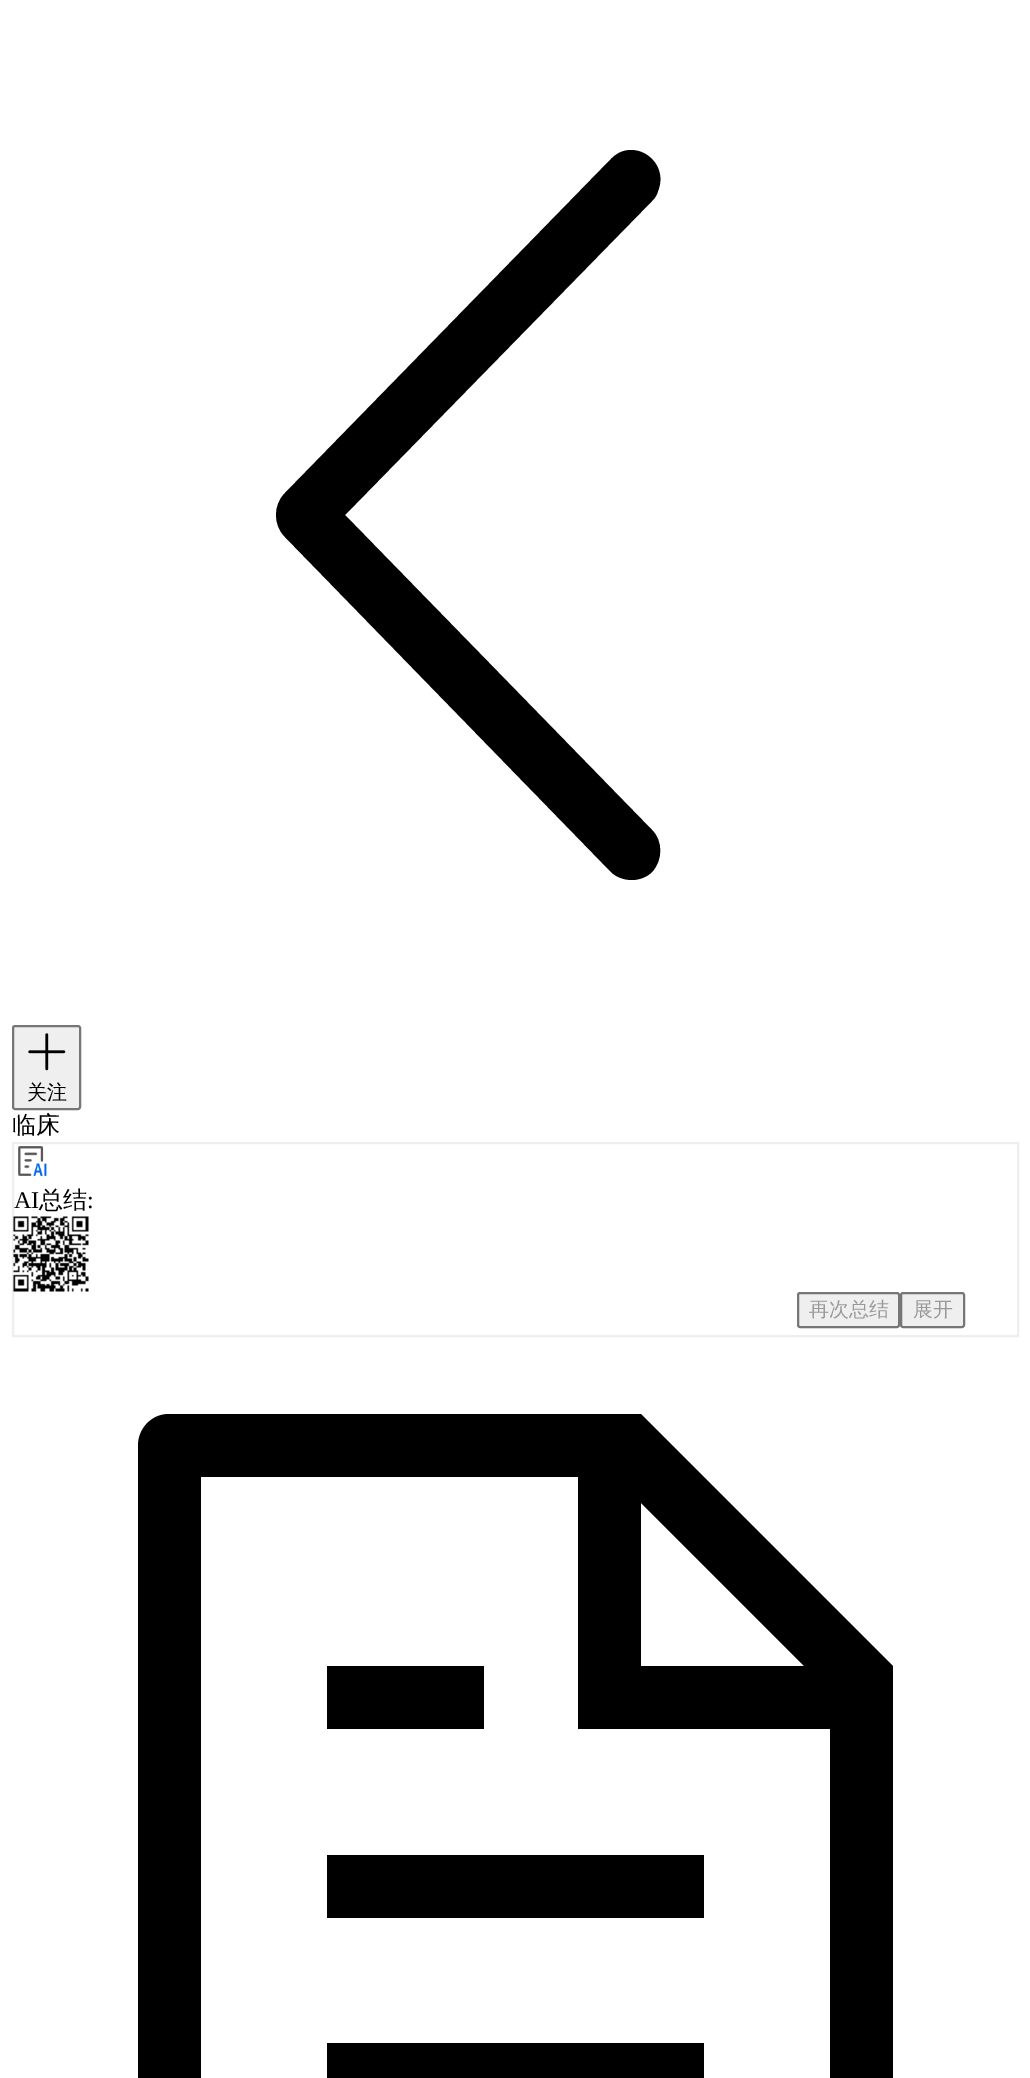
%!PS
<< /PageSize [1030 2078] >> setpagedevice
/rgb { dup -16 bitshift 255 div exch dup -8 bitshift 255 and 255 div exch 255 and 255 div setrgbcolor } def
/font { [ exch dup neg 0 0 3 -1 roll 0 0 ] selectfont } def
/text { moveto show } def
/roundrect { 5 dict begin { /r /h /w /y /x } { exch def } forall
  x r add y moveto x w add y 2 copy h add r arct x w add y h add x 1 index r arct
  x y h add x y r arct x y 2 copy exch w add exch r arct closepath end } def
/picture { 5 dict begin { /h /w /y /x /name } { exch def } forall
  gsave x y translate w h scale
  w h 8 [w 0 0 h 0 0] name (r) file false 3 colorimage grestore end } def
0 2078 translate 1 -1 scale
4 setmiterlimit
/s1 { /WenQuanYiZenHei-Medium 20 font 16#000000 rgb } def
/s2 { /WenQuanYiZenHei-Medium 24 font 16#000000 rgb } def
/s3 { /LiberationSerif-Regular 24 font 16#000000 rgb } def
/s4 { /WenQuanYiZenHei-Medium 20 font 16#999999 rgb } def
16#FFFFFF rgb
0 0 1030 2078 rectfill
16#000000 rgb
611 159 moveto 285 493 lineto 273 505 273 525 285 537 curveto 611 872 lineto 616 877 624 880 632 880 curveto 639 880 647 877 652 872 curveto 663 860 663 841 652 830 curveto 345 515 lineto 652 201 lineto 655 198 657 195 658 191 curveto 670 161 633 136 611 159 curveto fill
16#EFEFEF rgb
13 1026 67 83 2 roundrect gsave fill grestore
16#767676 rgb
2 setlinewidth
stroke
(pic1.raw) 28 1033 38 38 picture
s1
(关注) 27 1099 text
s2
(临床) 12 1133 text
16#EEEEEE rgb
13 1143 1005 193 rectstroke
(pic2.raw) 18 1146 29 30 picture
s3
(AI) 14 1208 text
s2
(总结) 39 1208 text
s3
(:) 87 1208 text
(pic3.raw) 13 1216 76 76 picture
16#EFEFEF rgb
798 1293 101 34 2 roundrect gsave fill grestore
16#767676 rgb
stroke
s4
(再次总结) 809 1316 text
16#EFEFEF rgb
901 1293 63 34 2 roundrect gsave fill grestore
16#767676 rgb
stroke
s4
(展开) 913 1316 text
16#000000 rgb
830 1729 moveto 578 1729 lineto 578 1477 lineto 201 1477 lineto 201 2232 lineto 830 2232 lineto closepath 804 1666 moveto 641 1503 lineto 641 1666 lineto closepath 169 1414 moveto 641 1414 lineto 893 1666 lineto 893 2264 lineto 893 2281 879 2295 861 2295 curveto 169 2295 lineto 152 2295 138 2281 138 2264 curveto 138 1446 lineto 138 1428 152 1414 169 1414 curveto 327 1855 moveto 704 1855 lineto 704 1918 lineto 327 1918 lineto closepath 327 1666 moveto 484 1666 lineto 484 1729 lineto 327 1729 lineto closepath 327 2043 moveto 704 2043 lineto 704 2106 lineto 327 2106 lineto closepath fill
showpage
